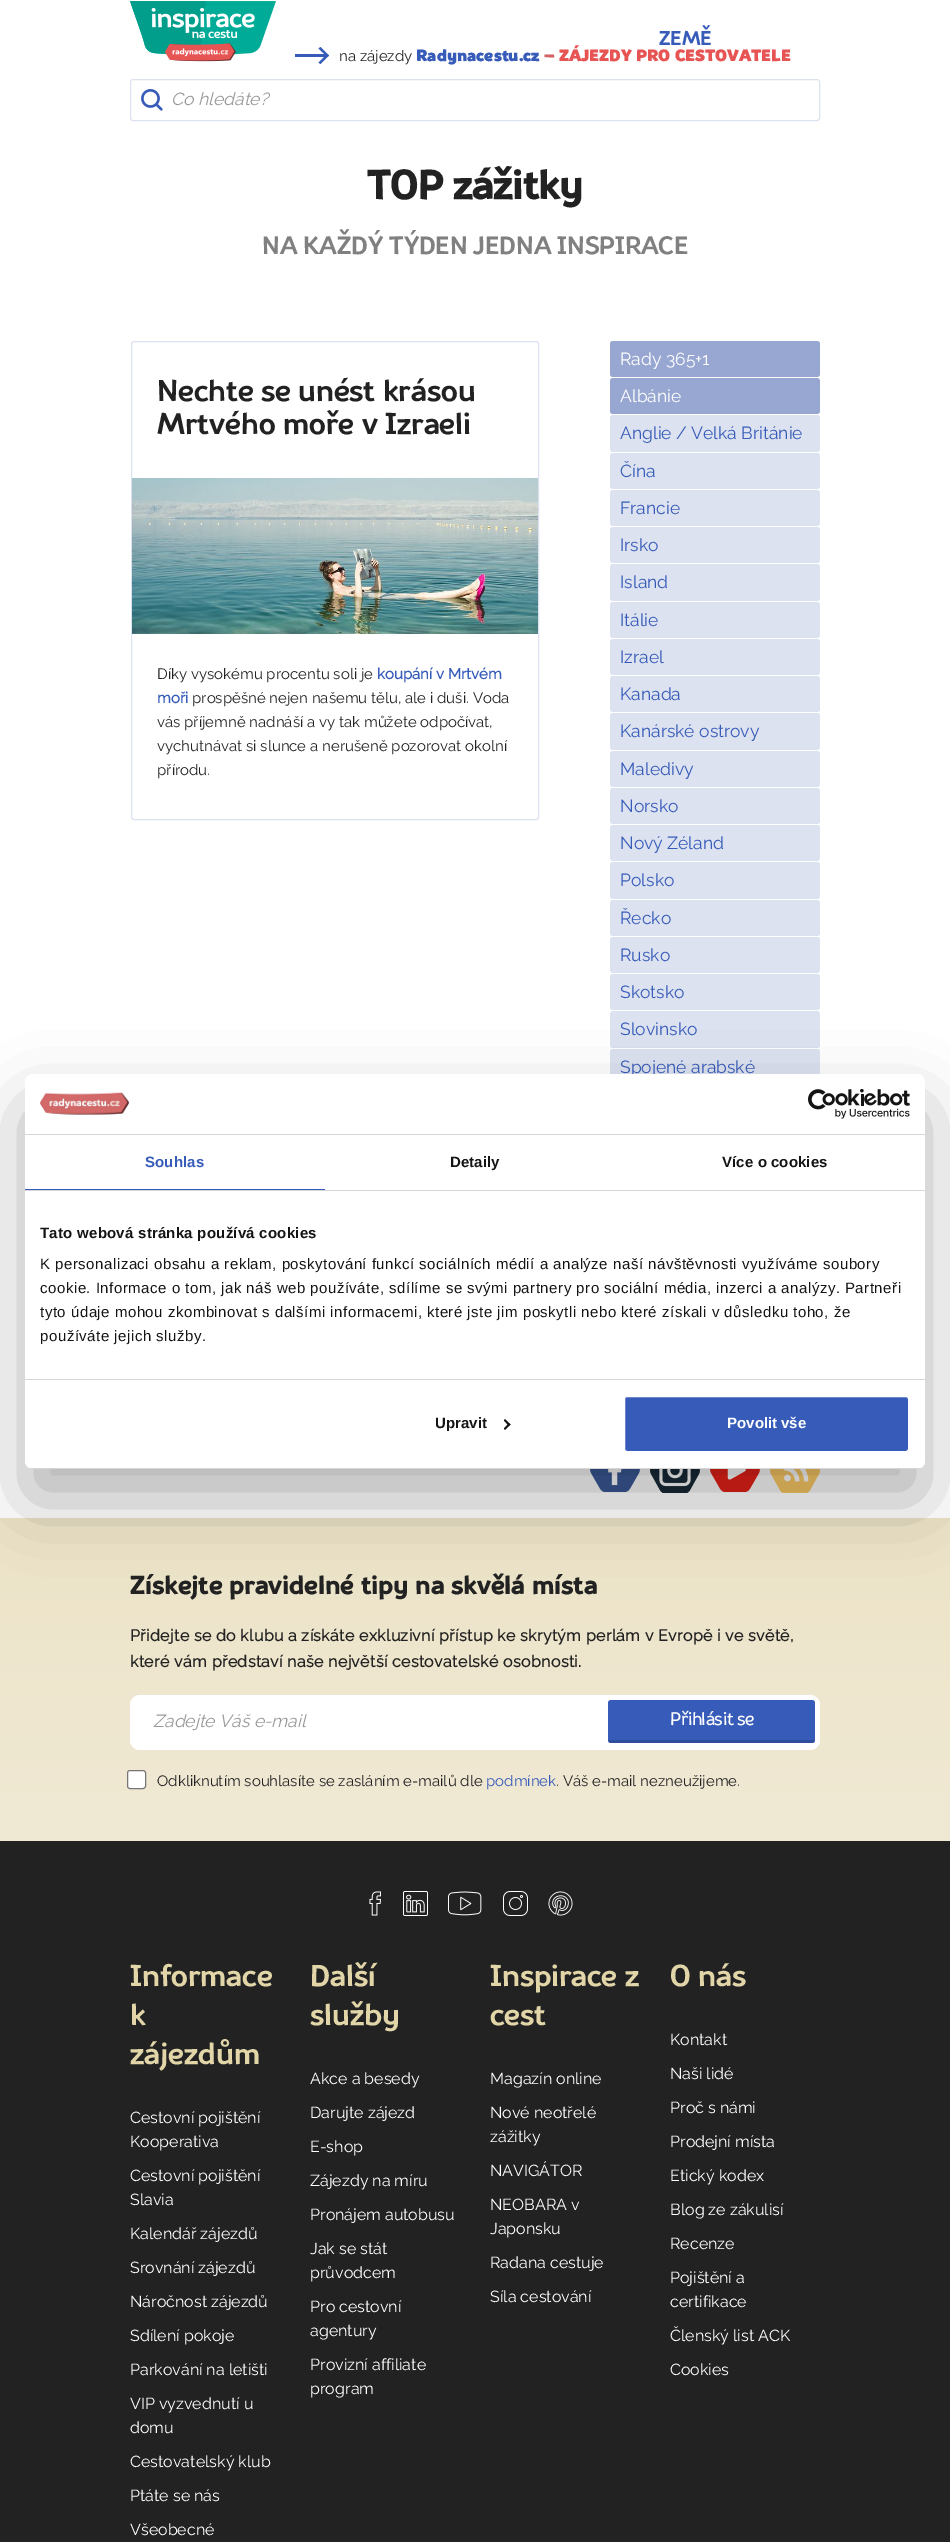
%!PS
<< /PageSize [950 2542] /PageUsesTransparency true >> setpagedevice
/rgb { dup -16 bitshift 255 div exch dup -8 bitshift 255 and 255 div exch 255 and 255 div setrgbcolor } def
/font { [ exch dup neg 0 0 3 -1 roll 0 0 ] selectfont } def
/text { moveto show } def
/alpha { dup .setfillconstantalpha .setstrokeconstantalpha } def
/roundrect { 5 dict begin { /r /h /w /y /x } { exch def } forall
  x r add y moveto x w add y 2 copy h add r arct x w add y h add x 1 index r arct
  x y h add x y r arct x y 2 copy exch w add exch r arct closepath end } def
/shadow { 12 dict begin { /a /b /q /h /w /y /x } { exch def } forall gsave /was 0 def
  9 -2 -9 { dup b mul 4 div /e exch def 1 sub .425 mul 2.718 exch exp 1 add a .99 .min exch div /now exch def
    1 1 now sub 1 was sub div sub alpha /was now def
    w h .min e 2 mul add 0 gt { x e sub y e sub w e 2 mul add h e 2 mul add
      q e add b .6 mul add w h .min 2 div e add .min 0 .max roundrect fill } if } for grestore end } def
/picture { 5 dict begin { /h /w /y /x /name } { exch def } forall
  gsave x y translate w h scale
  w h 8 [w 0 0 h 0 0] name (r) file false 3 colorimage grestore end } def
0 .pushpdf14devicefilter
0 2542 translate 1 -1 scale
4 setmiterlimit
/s1 { /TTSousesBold-Regular 20 font 16#375BB9 rgb } def
/s2 { /Raleway-Thin 15 font 16#222222 rgb } def
/s3 { /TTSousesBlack-Regular 16.25 font 16#375BB9 rgb } def
/s4 { /TTSousesBlack-Regular 16.25 font 16#D36263 rgb } def
/s5 { /TTSousesBlack-Regular 16.25 font 16#E65554 rgb } def
/s6 { /Raleway-ThinItalic 17.5 font 16#999999 rgb } def
/s7 { /TTSousesBold-Bold 40 font 16#222222 rgb } def
/s8 { /TTSousesBold-Regular 25 font 16#808080 rgb } def
/s9 { /TTSousesBold-Regular 30 font 16#222222 rgb } def
/s10 { /Raleway-Bold 15 font 16#375BB9 rgb } def
/s11 { /Raleway-Thin 17.5 font 16#FFFFFF rgb } def
/s12 { /Raleway-Thin 17.5 font 16#375BB9 rgb } def
/s13 { /LiberationSans-Bold 15 font 16#141414 rgb } def
/s14 { /LiberationSans-Bold 15 font 16#FFFFFF rgb } def
/s15 { /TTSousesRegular-Bold 17.5 font 16#FFFFFF rgb } def
/s16 { /Raleway-Thin 15 font 16#375BB9 rgb } def
/s17 { /TTSousesBold-Regular 30 font 16#E2D6A9 rgb } def
/s18 { /Raleway-Thin 16 font 16#FFFFFF rgb } def
16#FFFFFF rgb
0 0 950 2542 rectfill
(pic1.raw) 130 1 146 61 picture
s1
(ZEMĚ) 659 45 text
329 55.5 moveto 320.5 64 lineto 318.5 62.5 lineto 327 54 lineto closepath eofill
329 55.5 moveto 327.5 57 lineto 318.5 48.5 lineto 320.5 47 lineto closepath eofill
295 54 32 3 rectfill
s2
(na zájezdy) 339 61 text
s3
(Radynacestu.cz) 416 61 text
s4
(–) 544 61 text
s5
(ZÁJEZDY PRO CESTOVATELE) 559 61 text
(pic2.raw) 141 89 22 22 picture
16#DCE2F0 rgb
130.5 79.5 689 41 2.5 roundrect stroke
s6
(Co hledáte?) 171 105 text
s7
(TOP zážitky) 367 199 text
s8
(NA KAŽDÝ TÝDEN JEDNA INSPIRACE) 262 254 text
16#DCE2F0 rgb
131.5 341.5 407 478 2.5 roundrect stroke
s9
(Nechte se unést krásou) 157 401 text
(Mrtvého moře v Izraeli) 157 434 text
(pic3.raw) 132 478 406 156 picture
s2
(Díky vysokému procentu soli je) 157 679 text
s10
(koupání v Mrtvém) 377 679 text
(moři) 157 703 text
s2
(prospěšné nejen našemu tělu, ale i duši. Voda) 192 703 text
(vás příjemně nadnáší a vy tak můžete odpočívat,) 157 727 text
(vychutnávat si slunce a nerušeně pozorovat okolní) 157 751 text
(přírodu.) 157 775 text
16#97A7D1 rgb
610 341 210 36 3 roundrect fill
s11
(Rady 365+1) 620 365 text
16#97A7D1 rgb
610 378 210 36 3 roundrect fill
s11
(Albánie) 620 402 text
16#DCE2F0 rgb
610 415 210 37 3 roundrect fill
s12
(Anglie / Velká Británie) 620 439 text
16#DCE2F0 rgb
610 453 210 36 3 roundrect fill
s12
(Čína) 620 477 text
16#DCE2F0 rgb
610 490 210 36 3 roundrect fill
s12
(Francie) 620 514 text
16#DCE2F0 rgb
610 527 210 36 3 roundrect fill
s12
(Irsko) 620 551 text
16#DCE2F0 rgb
610 564 210 37 3 roundrect fill
s12
(Island) 620 588 text
16#DCE2F0 rgb
610 602 210 36 3 roundrect fill
s12
(Itálie) 620 626 text
16#DCE2F0 rgb
610 639 210 36 3 roundrect fill
s12
(Izrael) 620 663 text
16#DCE2F0 rgb
610 676 210 36 3 roundrect fill
s12
(Kanada) 620 700 text
16#DCE2F0 rgb
610 713 210 37 3 roundrect fill
s12
(Kanárské ostrovy) 620 737 text
16#DCE2F0 rgb
610 751 210 36 3 roundrect fill
s12
(Maledivy) 620 775 text
16#DCE2F0 rgb
610 788 210 36 3 roundrect fill
s12
(Norsko) 620 812 text
16#DCE2F0 rgb
610 825 210 36 3 roundrect fill
s12
(Nový Zéland) 620 849 text
16#DCE2F0 rgb
610 862 210 37 3 roundrect fill
s12
(Polsko) 620 886 text
16#DCE2F0 rgb
610 900 210 36 3 roundrect fill
s12
(Řecko) 620 924 text
16#DCE2F0 rgb
610 937 210 36 3 roundrect fill
s12
(Rusko) 620 961 text
16#DCE2F0 rgb
610 974 210 36 3 roundrect fill
s12
(Skotsko) 620 998 text
16#DCE2F0 rgb
610 1011 210 37 3 roundrect fill
s12
(Slovinsko) 620 1035 text
16#DCE2F0 rgb
610 1049 210 62 3 roundrect fill
s12
(Spojené arabské) 620 1073 text
(pic6.raw) 590 1469 50 23 picture
(pic7.raw) 650 1469 50 24 picture
(pic8.raw) 710 1469 50 23 picture
(pic9.raw) 770 1469 50 24 picture
gsave 0 1518 moveto 950 1518 lineto 950 1841 lineto 0 1841 lineto closepath clip newpath
<< /ShadingType 2 /ColorSpace /DeviceRGB /Coords [475 1518 475 1841] /Extend [true true] /Function << /FunctionType 2 /Domain [0 1] /C0 [0.925 0.89 0.78] /C1 [0.941 0.914 0.831] /N 1 >> >> shfill grestore
16#000000 rgb
25 1106 900 395 8 34 0.3 shadow
16#FFFFFF rgb
25 1074 900 395 8 roundrect fill
16#D6D6D6 rgb
25 1134 900 1 rectfill
(pic4.raw) 40 1092 89 23 picture
(pic5.raw) 808 1089 102 30 picture
25 1190 900 1 rectfill
16#375BB9 rgb
25 1189 300 1 rectfill
/LiberationSans-Bold 15 font
145 1167 moveto 0.1 0 (Souhlas) ashow
16#141414 rgb
450 1167 moveto 0.1 0 (Detaily) ashow
722 1167 moveto 0.1 0 (Více o cookies) ashow
16#D6D6D6 rgb
25 1379 900 1 rectfill
16#141414 rgb
40 1238 moveto 0.25 0 (Tato webová stránka používá cookies) ashow
/LiberationSans-Regular 15 font
40 1269 moveto 0.5 0 (K personalizaci obsahu a reklam, poskytování funkcí sociálních médií a analýze naší návštěvnosti využíváme soubory) ashow
40 1293 moveto 0.5 0 (cookie. Informace o tom, jak náš web používáte, sdílíme se svými partnery pro sociální média, inzerci a analýzy. Partneři) ashow
40 1317 moveto 0.5 0 (tyto údaje mohou zkombinovat s dalšími informacemi, které jste jim poskytli nebo které získali v důsledku toho, že) ashow
40 1341 moveto 0.5 0 (používáte jejich služby.) ashow
gsave
25 1074 900 395 8 roundrect clip newpath
16#D6D6D6 rgb
25 1468 900 1 rectfill
grestore
s13
(Upravit) 435 1428 text
505 1419 moveto 510.5 1424.5 lineto 509 1426 lineto 504 1420.5 lineto closepath fill
509 1423 moveto 510.5 1424.5 lineto 505 1430 lineto 504 1428.5 lineto closepath fill
16#375BB9 rgb
624 1396 285 56 3 roundrect gsave fill grestore
16#FFFFFF rgb
2 setlinewidth
stroke
(Povolit vše) 727 1428 text
/TTSousesBold-Bold 25 font
16#222222 rgb
130 1594 moveto 0.5 0 (Získejte pravidelné tipy na skvělá místa) ashow
/Raleway-Bold 16 font
130 1641 moveto 0.32 0 (Přidejte se do klubu a získáte exkluzivní přístup ke skrytým perlám v Evropě i ve světě,) ashow
130 1667 moveto 0.32 0 (které vám představí naše největší cestovatelské osobnosti.) ashow
16#FFFFFF rgb
130 1695 690 55 10 roundrect fill
s6
(Zadejte Váš e-mail) 153 1727 text
16#375BB9 rgb
608 1700 207 43 3 roundrect fill
0.15 alpha
16#000000 rgb
611 1743 moveto 812 1743 lineto 813 1743 814 1743 815 1742 curveto 814 1740 lineto 609 1740 lineto 608 1742 lineto 609 1743 610 1743 611 1743 curveto closepath fill
1 alpha
s15
(Přihlásit se) 670 1725 text
127.5 1770.5 18 18 2.5 roundrect gsave fill grestore
16#767676 rgb
1 setlinewidth
stroke
s2
(Odkliknutím souhlasíte se zasláním e-mailů dle) 157 1786 text
s16
(podmínek) 486 1786 text
s2
(. Váš e-mail nezneužijeme.) 556 1786 text
0 1841 950 701 rectfill
(pic10.raw) 369 1891 12 25 picture
(pic11.raw) 403 1891 25 25 picture
(pic12.raw) 448 1891 34 25 picture
(pic13.raw) 503 1891 25 25 picture
(pic14.raw) 548 1891 25 25 picture
s17
(Informace) 130 1986 text
(k) 130 2025 text
(zájezdům) 130 2064 text
s18
(Cestovní pojištění) 130 2123 text
(Kooperativa) 130 2147 text
(Cestovní pojištění) 130 2181 text
(Slavia) 130 2205 text
(Kalendář zájezdů) 130 2239 text
(Srovnání zájezdů) 130 2273 text
(Náročnost zájezdů) 130 2307 text
(Sdílení pokoje) 130 2341 text
(Parkování na letišti) 130 2375 text
(VIP vyzvednutí u) 130 2409 text
(domu) 130 2433 text
(Cestovatelský klub) 130 2467 text
(Ptáte se nás) 130 2501 text
(Všeobecné) 130 2535 text
s17
(Další) 310 1986 text
(služby) 310 2025 text
s18
(Akce a besedy) 310 2084 text
(Darujte zájezd) 310 2118 text
(E-shop) 310 2152 text
(Zájezdy na míru) 310 2186 text
(Pronájem autobusu) 310 2220 text
(Jak se stát) 310 2254 text
(průvodcem) 310 2278 text
(Pro cestovní) 310 2312 text
(agentury) 310 2336 text
(Provizní affiliate) 310 2370 text
(program) 310 2394 text
s17
(Inspirace z) 490 1986 text
(cest) 490 2025 text
s18
(Magazín online) 490 2084 text
(Nové neotřelé) 490 2118 text
(zážitky) 490 2142 text
(NAVIGÁTOR) 490 2176 text
(NEOBARA v) 490 2210 text
(Japonsku) 490 2234 text
(Radana cestuje) 490 2268 text
(Síla cestování) 490 2302 text
s17
(O nás) 670 1986 text
s18
(Kontakt) 670 2045 text
(Naši lidé) 670 2079 text
(Proč s námi) 670 2113 text
(Prodejní místa) 670 2147 text
(Etický kodex) 670 2181 text
(Blog ze zákulisí) 670 2215 text
(Recenze) 670 2249 text
(Pojištění a) 670 2283 text
(certifikace) 670 2307 text
(Členský list ACK) 670 2341 text
(Cookies) 670 2375 text
.poppdf14devicefilter showpage
